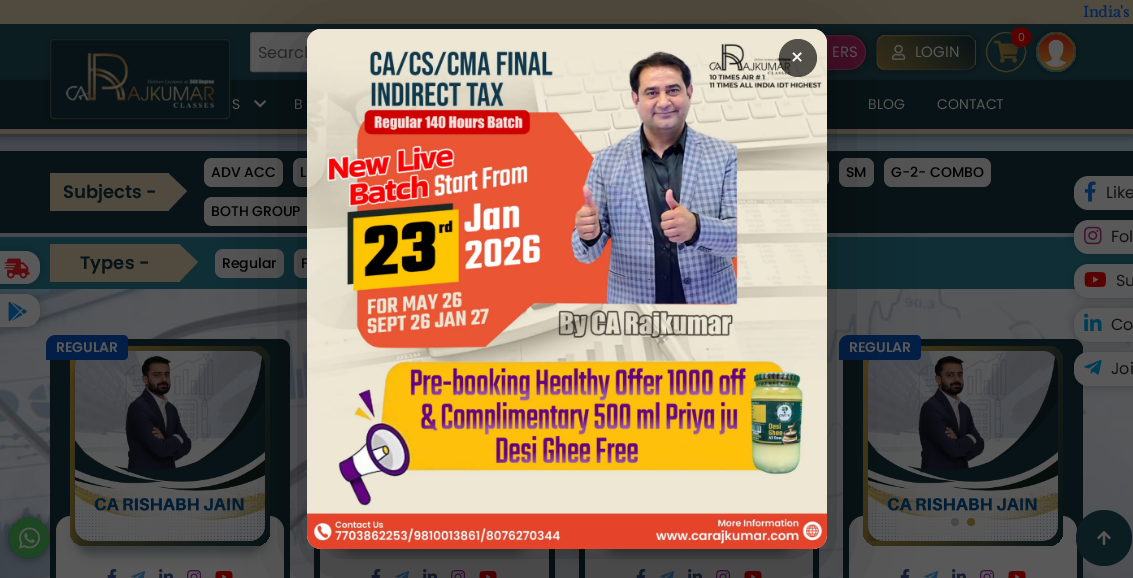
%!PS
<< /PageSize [1133 578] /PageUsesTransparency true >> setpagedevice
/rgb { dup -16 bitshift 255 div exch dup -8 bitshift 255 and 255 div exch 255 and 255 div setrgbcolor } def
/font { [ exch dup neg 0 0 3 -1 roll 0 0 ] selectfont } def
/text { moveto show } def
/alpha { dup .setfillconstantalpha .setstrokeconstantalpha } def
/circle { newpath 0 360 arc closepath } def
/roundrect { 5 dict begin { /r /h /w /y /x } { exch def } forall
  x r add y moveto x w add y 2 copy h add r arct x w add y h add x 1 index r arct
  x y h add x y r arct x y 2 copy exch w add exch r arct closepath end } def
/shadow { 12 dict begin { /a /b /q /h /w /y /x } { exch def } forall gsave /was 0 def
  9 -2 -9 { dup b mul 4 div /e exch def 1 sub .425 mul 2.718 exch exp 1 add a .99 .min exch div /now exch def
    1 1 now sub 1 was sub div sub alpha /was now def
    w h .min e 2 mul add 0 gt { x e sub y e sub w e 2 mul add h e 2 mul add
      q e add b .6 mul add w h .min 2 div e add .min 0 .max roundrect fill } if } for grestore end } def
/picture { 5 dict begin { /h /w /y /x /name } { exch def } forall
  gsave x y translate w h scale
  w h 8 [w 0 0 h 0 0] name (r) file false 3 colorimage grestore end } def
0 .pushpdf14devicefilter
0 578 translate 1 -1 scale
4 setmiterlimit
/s1 { /LibreBaskerville-Bold 14 font 16#052759 rgb } def
/s2 { /Poppins-Regular 16 font 16#292929 rgb } def
/s3 { /Poppins-Regular 11 font 16#595959 rgb } def
/s4 { /Poppins-Regular 15 font 16#595959 rgb } def
/s5 { /Poppins-Regular 14 font 16#595959 rgb } def
/s6 { /Poppins-Medium 14 font 16#000000 rgb } def
/s7 { /Poppins-Regular 22 font 16#FFFFFF rgb } def
/s8 { /Poppins-SemiBold 18 font 16#071316 rgb } def
/s9 { /Poppins-Regular 16 font 16#121212 rgb } def
/s10 { /Poppins-SemiBold 14 font 16#595959 rgb } def
16#FFFFFF rgb
0 0 1133 578 rectfill
gsave 0 134 moveto 1133 134 lineto 1133 237 lineto 0 237 lineto closepath clip newpath
<< /ShadingType 2 /ColorSpace /DeviceRGB /Coords [-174 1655 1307 174] /Extend [true true] /Function << /FunctionType 2 /Domain [0 1] /C0 [0.298 0.259 0.302] /C1 [0.263 0.31 0.325] /N 1 >> >> shfill grestore
16#514B3F rgb
0 0 1133 24 rectfill
s1
(India's) 1083 17 text
16#0C1D22 rgb
0 24 1133 56 rectfill
16#595959 rgb
253 32.5 moveto 649.5 32.5 lineto 649.5 71.5 lineto 253 71.5 lineto 251.5 71.5 250.5 70.5 250.5 69 curveto 250.5 35 lineto 250.5 33.5 251.5 32.5 253 32.5 curveto closepath gsave fill grestore
16#4D4D4D rgb
stroke
16#0C1D22 rgb
657 32 70 40 5 5 1 shadow
16#000000 rgb
876 35 100 35 10 5 0.46 shadow
gsave
876 35 100 35 10 roundrect clip newpath
gsave 877 35 moveto 975 35 lineto 975 36 lineto 877 36 lineto closepath clip newpath
<< /ShadingType 2 /ColorSpace /DeviceRGB /Coords [893 52 959 -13] /Extend [true true] /Function << /FunctionType 2 /Domain [0 1] /C0 [0.227 0.192 0.098] /C1 [0.027 0.075 0.086] /N 1 >> >> shfill grestore
gsave 876 36 moveto 877 36 lineto 877 69 lineto 876 69 lineto closepath clip newpath
<< /ShadingType 2 /ColorSpace /DeviceRGB /Coords [795 85 861 20] /Extend [true true] /Function << /FunctionType 2 /Domain [0 1] /C0 [0.227 0.192 0.098] /C1 [0.027 0.075 0.086] /N 1 >> >> shfill grestore
gsave 877 36 moveto 975 36 lineto 975 69 lineto 877 69 lineto closepath clip newpath
<< /ShadingType 2 /ColorSpace /DeviceRGB /Coords [893 85 959 20] /Extend [true true] /Function << /FunctionType 2 /Domain [0 1] /C0 [0.227 0.192 0.098] /C1 [0.027 0.075 0.086] /N 1 >> >> shfill grestore
gsave 877 69 moveto 975 69 lineto 975 70 lineto 877 70 lineto closepath clip newpath
<< /ShadingType 2 /ColorSpace /DeviceRGB /Coords [893 118 959 53] /Extend [true true] /Function << /FunctionType 2 /Domain [0 1] /C0 [0.227 0.192 0.098] /C1 [0.027 0.075 0.086] /N 1 >> >> shfill grestore
gsave 975 36 moveto 976 36 lineto 976 69 lineto 975 69 lineto closepath clip newpath
<< /ShadingType 2 /ColorSpace /DeviceRGB /Coords [991 85 1057 20] /Extend [true true] /Function << /FunctionType 2 /Domain [0 1] /C0 [0.227 0.192 0.098] /C1 [0.027 0.075 0.086] /N 1 >> >> shfill grestore
grestore
0.31 alpha
16#4F4733 rgb
876.5 35.5 99 34 9.5 roundrect stroke
1 alpha
16#000000 rgb
766 35 100 35 17.5 5 0.46 shadow
0.86 alpha
16#4E3F1F rgb
1006 52 19.5 circle stroke
1 alpha
(pic2.raw) 994 40 25 23 picture
16#071316 rgb
1011 27 20 20 10 5 0.52 shadow
16#590000 rgb
1021 37 10 circle fill
16#000000 rgb
1036 32 40 40 20 5 0.42 shadow
16#071316 rgb
0 80 1133 49 rectfill
16#450E28 rgb
766 35 100 35 17.5 roundrect fill
0.31 alpha
16#4F4733 rgb
766.5 35.5 99 34 17 roundrect stroke
1 alpha
gsave 1056 52 20 circle clip newpath
<< /ShadingType 2 /ColorSpace /DeviceRGB /Coords [1036 72 1076 32] /Extend [true true] /Function << /FunctionType 2 /Domain [0 1] /C0 [0.059 0.235 0.278] /C1 [0.243 0.196 0.094] /N 1 >> >> shfill grestore
16#595959 rgb
1056 52 18 circle fill
(pic4.raw) 1038 34 36 36 picture
16#071316 rgb
0 151 1133 82 rectfill
gsave
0 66 moveto 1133 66 lineto 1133 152 lineto 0 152 lineto closepath 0 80 moveto 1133 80 lineto 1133 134 lineto 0 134 lineto closepath eoclip newpath
0 82 1133 54 0 5 0.58 shadow
grestore
16#514B3F rgb
0 129 1133 5 rectfill
16#000000 rgb
50 39 180 80 4 5 0.31 shadow
16#071316 rgb
50 39 180 80 4 roundrect fill
0.25 alpha
16#514B3F rgb
50.5 39.5 179 79 3.5 roundrect stroke
1 alpha
(pic1.raw) 65 53 150 55 picture
s2
(Search) 258 58 text
s3
(0) 1018 41 text
s4
(ERS) 832 57 text
(pic3.raw) 892 44 14 16 picture
(LOGIN) 915 57 text
s5
(S) 232 109 text
(pic5.raw) 254 100 12 8 picture
(B) 294 109 text
(BLOG) 868 109 text
(CONTACT) 937 109 text
16#514B3F rgb
50 173 119 38 rectfill
168 211 moveto 168 173 lineto 187 191 lineto closepath fill
16#545454 rgb
204 158 79 29 8 roundrect fill
293 158 44 29 8 roundrect fill
796 158 33 29 8 roundrect fill
839 158 35 29 8 roundrect fill
884 158 107 29 8 roundrect fill
204 197 162 29 8 roundrect fill
16#0F2E36 rgb
0 237 1133 52 rectfill
16#514B3F rgb
50 244 130 38 rectfill
179 282 moveto 179 244 lineto 198 262 lineto closepath fill
16#545454 rgb
215 249 69 29 8 roundrect fill
294 249 74 29 8 roundrect fill
(pic16.raw) 0 289 1133 289 picture
16#071316 rgb
50 339 240 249 10 roundrect fill
16#595959 rgb
56 516 228 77 15 roundrect fill
gsave 70 346 200 200 15 roundrect clip newpath
<< /ShadingType 2 /ColorSpace /DeviceRGB /Coords [52 414 288 478] /Extend [true true] /Function << /FunctionType 2 /Domain [0 1] /C0 [0.314 0.251 0.102] /C1 [0.027 0.075 0.086] /N 1 >> >> shfill grestore
(pic18.raw) 107 569 10 9 picture
(pic19.raw) 131 571 14 7 picture
(pic20.raw) 159 569 14 9 picture
(pic21.raw) 187 570 15 8 picture
(pic22.raw) 215 571 18 7 picture
16#071316 rgb
75 364 190 190 15 5.5 0.4 shadow
(pic17.raw) 75 351 190 190 picture
314 547 241 31 rectfill
16#000000 rgb
320 516 229 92 15 5 0.15 shadow
16#595959 rgb
320 548 229 30 rectfill
(pic18.raw) 371 569 10 9 picture
(pic19.raw) 395 571 14 7 picture
(pic20.raw) 423 569 14 9 picture
(pic21.raw) 451 570 15 8 picture
(pic22.raw) 479 571 18 7 picture
16#071316 rgb
579 547 240 31 rectfill
16#000000 rgb
585 516 228 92 15 5 0.15 shadow
16#595959 rgb
585 549 228 29 rectfill
(pic18.raw) 636 569 10 9 picture
(pic19.raw) 660 571 14 7 picture
(pic20.raw) 688 569 14 9 picture
(pic21.raw) 716 570 15 8 picture
(pic22.raw) 744 571 18 7 picture
16#071316 rgb
843 339 240 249 10 roundrect fill
16#595959 rgb
849 516 228 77 15 roundrect fill
gsave 863 346 200 200 15 roundrect clip newpath
<< /ShadingType 2 /ColorSpace /DeviceRGB /Coords [845 414 1081 478] /Extend [true true] /Function << /FunctionType 2 /Domain [0 1] /C0 [0.314 0.251 0.102] /C1 [0.027 0.075 0.086] /N 1 >> >> shfill grestore
(pic18.raw) 900 569 10 9 picture
(pic19.raw) 924 571 14 7 picture
(pic20.raw) 952 569 14 9 picture
(pic21.raw) 980 570 15 8 picture
(pic22.raw) 1008 571 18 7 picture
gsave
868 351 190 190 rectclip
16#071316 rgb
868 364 190 190 15 5.5 0.4 shadow
grestore
(pic23.raw) 868 351 190 190 picture
16#041F47 rgb
849 335 moveto 916 335 lineto 919 335 921 337 921 340 curveto 921 355 lineto 921 358 919 360 916 360 curveto 839 360 lineto 839 345 lineto 839 339.5 843.5 335 849 335 curveto closepath fill
16#000000 rgb
307 49 520 520 14 40 0.35 shadow
s6
(F) 301 268 text
16#071316 rgb
339 364 190 190 15 5.5 0.4 shadow
604 364 190 190 15 5.5 0.4 shadow
(pic6.raw) 307 29 520 520 picture
0.65 alpha
16#000000 rgb
798 58 19 circle fill
1 alpha
s7
(×) 790 65 text
s8
(Subjects -) 63 198 text
s6
(ADV ACC) 211 177 text
(L) 300 177 text
(SM) 846 177 text
(G-2- COMBO) 891 177 text
(BOTH GROUP) 211 216 text
-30 251 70 33 15 5 0.22 shadow
16#595959 rgb
-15 251 moveto 25 251 lineto 33.5 251 40 257.5 40 266 curveto 40 269 lineto 40 277.5 33.5 284 25 284 curveto -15 284 lineto closepath fill
(pic7.raw) 4 258 26 21 picture
16#041F47 rgb
56 335 moveto 123 335 lineto 126 335 128 337 128 340 curveto 128 355 lineto 128 358 126 360 123 360 curveto 46 360 lineto 46 345 lineto 46 339.5 50.5 335 56 335 curveto closepath fill
16#000000 rgb
-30 294 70 33 15 5 0.22 shadow
16#595959 rgb
-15 294 moveto 25 294 lineto 33.5 294 40 300.5 40 309 curveto 40 312 lineto 40 320.5 33.5 327 25 327 curveto -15 327 lineto closepath fill
(pic8.raw) 8 301 19 21 picture
1089 176 moveto 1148 176 lineto 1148 210 lineto 1089 210 lineto 1080.5 210 1074 203.5 1074 195 curveto 1074 191 lineto 1074 182.5 1080.5 176 1089 176 curveto closepath fill
(pic9.raw) 1084 181 12 21 picture
s9
(Like) 1106 198 text
16#000000 rgb
1074 220 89 34 15 5 0.22 shadow
16#595959 rgb
1089 220 moveto 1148 220 lineto 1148 254 lineto 1089 254 lineto 1080.5 254 1074 247.5 1074 239 curveto 1074 235 lineto 1074 226.5 1080.5 220 1089 220 curveto closepath fill
(pic10.raw) 1084 226 18 19 picture
s9
(Fol) 1111 242 text
16#000000 rgb
1074 264 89 34 15 5 0.22 shadow
16#595959 rgb
1089 264 moveto 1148 264 lineto 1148 298 lineto 1089 298 lineto 1080.5 298 1074 291.5 1074 283 curveto 1074 279 lineto 1074 270.5 1080.5 264 1089 264 curveto closepath fill
(pic11.raw) 1084 272 22 15 picture
s9
(Su) 1116 286 text
16#000000 rgb
1074 308 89 34 15 5 0.22 shadow
16#595959 rgb
1089 308 moveto 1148 308 lineto 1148 342 lineto 1089 342 lineto 1080.5 342 1074 335.5 1074 327 curveto 1074 323 lineto 1074 314.5 1080.5 308 1089 308 curveto closepath fill
(pic12.raw) 1084 313 18 18 picture
s9
(Co) 1111 330 text
16#000000 rgb
1074 352 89 34 15 5 0.22 shadow
16#595959 rgb
1089 352 moveto 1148 352 lineto 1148 386 lineto 1089 386 lineto 1080.5 386 1074 379.5 1074 371 curveto 1074 367 lineto 1074 358.5 1080.5 352 1089 352 curveto closepath fill
(pic13.raw) 1084 360 18 15 picture
s9
(Joi) 1111 374 text
16#000000 rgb
9 518 40 40 20 5 0.5 shadow
16#1C4721 rgb
29 538 20 circle fill
(pic14.raw) 19 527 21 22 picture
16#0C1D22 rgb
1104 538 28 circle fill
(pic15.raw) 1097 531 14 14 picture
s8
(Types -) 80 269 text
s6
(Regular) 222 268 text
s10
(REGULAR) 56 352 text
(REGULAR) 849 352 text
0.2 alpha
16#000000 rgb
955 522 4 circle fill
1 alpha
16#483B1B rgb
971 522 4 circle fill
.poppdf14devicefilter showpage
